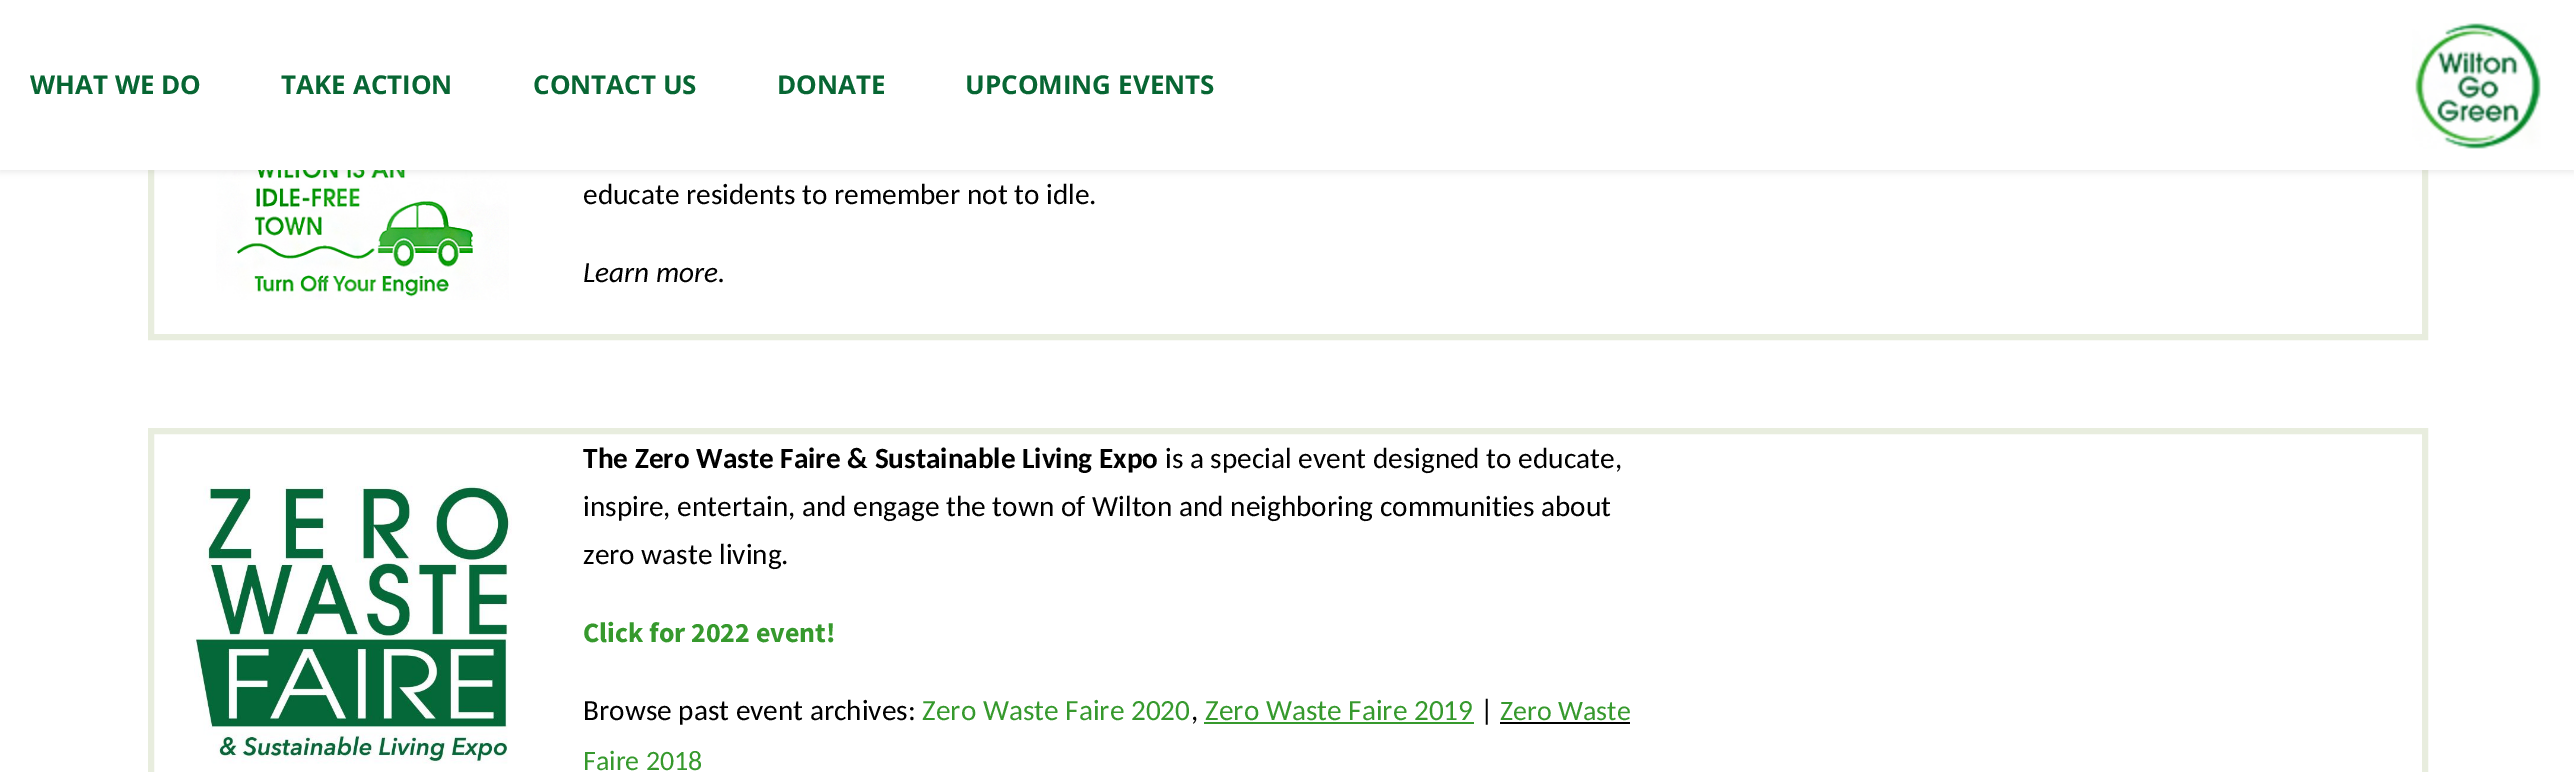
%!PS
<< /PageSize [2574 772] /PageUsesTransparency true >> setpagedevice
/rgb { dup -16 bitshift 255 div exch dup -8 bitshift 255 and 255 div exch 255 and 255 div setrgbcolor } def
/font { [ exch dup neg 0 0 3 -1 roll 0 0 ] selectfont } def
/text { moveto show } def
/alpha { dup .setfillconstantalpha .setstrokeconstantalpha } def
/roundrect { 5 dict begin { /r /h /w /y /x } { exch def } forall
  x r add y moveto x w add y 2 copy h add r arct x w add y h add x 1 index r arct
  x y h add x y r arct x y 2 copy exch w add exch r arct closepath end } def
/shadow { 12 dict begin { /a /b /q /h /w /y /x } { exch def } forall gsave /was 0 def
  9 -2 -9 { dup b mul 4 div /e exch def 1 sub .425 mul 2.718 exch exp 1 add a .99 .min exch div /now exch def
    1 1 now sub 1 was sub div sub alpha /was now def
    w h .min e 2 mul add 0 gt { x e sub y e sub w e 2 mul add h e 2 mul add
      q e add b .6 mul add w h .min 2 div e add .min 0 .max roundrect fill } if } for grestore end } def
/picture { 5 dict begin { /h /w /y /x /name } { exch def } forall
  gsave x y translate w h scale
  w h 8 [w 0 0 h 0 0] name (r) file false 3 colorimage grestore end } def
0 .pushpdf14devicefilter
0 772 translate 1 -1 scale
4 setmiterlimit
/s1 { /OpenSans-Bold 26 font 16#076633 rgb } def
/s2 { /Carlito-Regular 29.3 font 16#000000 rgb } def
/s3 { /Carlito-Italic 29.3 font 16#000000 rgb } def
/s4 { /Carlito-Bold 29.3 font 16#000000 rgb } def
/s5 { /SourceSansPro-Bold 28 font 16#36992D rgb } def
/s6 { /Carlito-Regular 29.3 font 16#36992D rgb } def
/s7 { /Carlito-Regular 28 font 16#36992D rgb } def
16#FFFFFF rgb
0 0 2574 772 rectfill
16#E8EDDE rgb
6 setlinewidth
151 119 2274 218 rectstroke
(pic2.raw) 216 170 293 130 picture
16#323232 rgb
0 2 2574 170 0 3 0.1 shadow
16#FFFFFF rgb
0 0 2574 170 rectfill
s1
(WHAT WE DO) 30 94 text
(TAKE ACTION) 281 94 text
(CONTACT US) 533 94 text
(DONATE) 777 94 text
(UPCOMING EVENTS) 965 94 text
(pic1.raw) 2412 23 129 126 picture
s2
(educate residents to remember not to idle.) 583 204 text
s3
(Learn more.) 583 282 text
16#E8EDDE rgb
151 431 2274 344 rectstroke
(pic3.raw) 194 486 318 278 picture
s4
(The Zero Waste Faire & Sustainable Living Expo) 583 468 text
s2
(is a special event designed to educate,) 1165 468 text
(inspire, entertain, and engage the town of) 583 516 text
(Wilton and neighboring communities about) 1092 516 text
(zero waste living.) 583 564 text
s5
(Click for 2022 event!) 583 642 text
s2
(Browse past event archives:) 583 720 text
s6
(Zero Waste Faire 2020) 922 720 text
s2
(,) 1191 720 text
s6
(Zero Waste Faire 2019) 1205 720 text
1204 722 270 2 rectfill
s2
(|) 1480 720 text
s7
(Zero Waste) 1500 720 text
16#000000 rgb
1500 722 130 2 rectfill
s7
(Faire 2018) 583 770 text
.poppdf14devicefilter showpage
